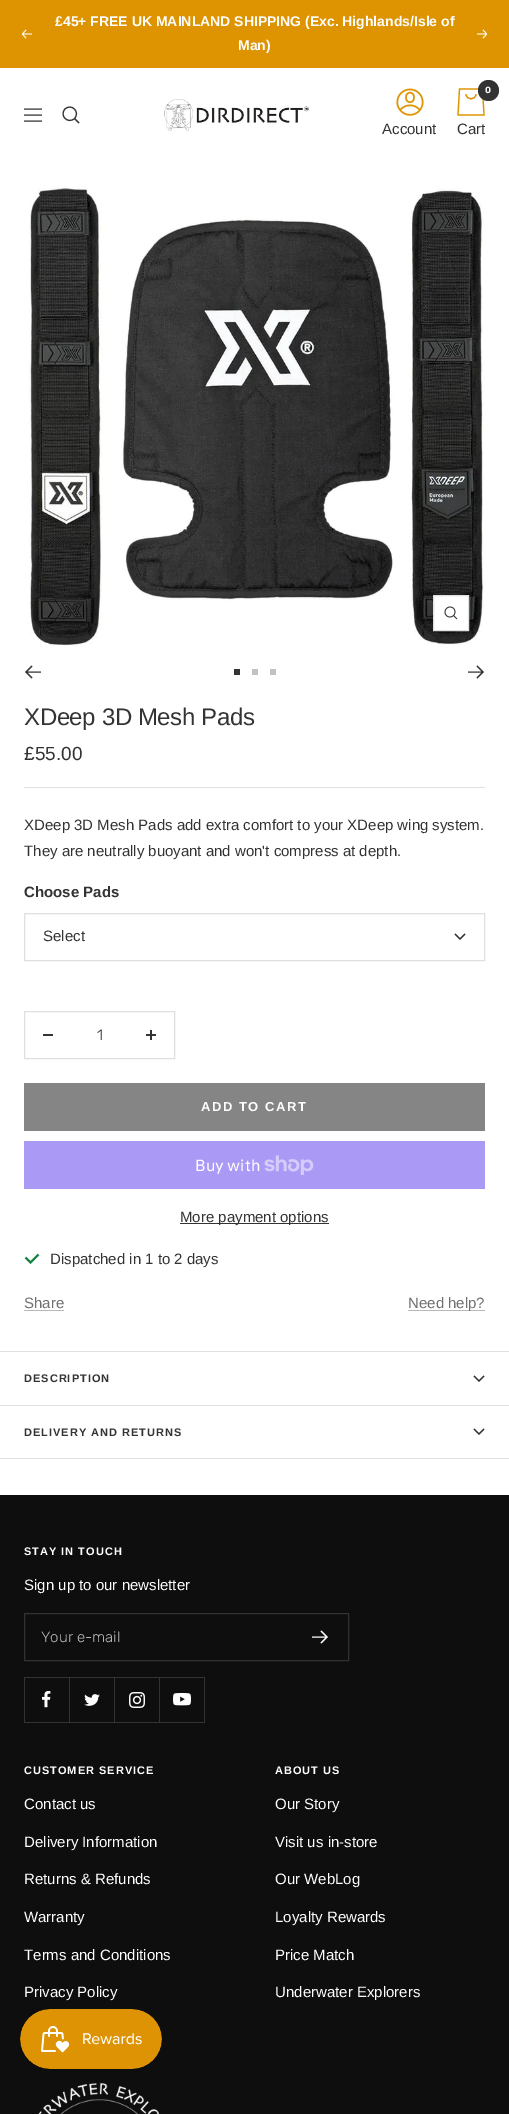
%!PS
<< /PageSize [509 2114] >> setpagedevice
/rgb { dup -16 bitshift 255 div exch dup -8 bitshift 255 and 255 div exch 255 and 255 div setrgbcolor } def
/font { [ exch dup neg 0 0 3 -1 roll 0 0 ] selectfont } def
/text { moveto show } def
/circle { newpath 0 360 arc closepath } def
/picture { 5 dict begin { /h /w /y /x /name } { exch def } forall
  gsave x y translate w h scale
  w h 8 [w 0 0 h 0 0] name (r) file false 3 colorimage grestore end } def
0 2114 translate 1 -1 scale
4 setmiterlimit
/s1 { /LiberationSans-Bold 14 font 16#FEFEFE rgb } def
/s2 { /LiberationSans-Regular 15 font 16#333333 rgb } def
/s3 { /Rubik-SemiBold 9 font 16#FEFEFE rgb } def
/s4 { /LiberationSans-Regular 19 font 16#333333 rgb } def
/s5 { /LiberationSans-Bold 15 font 16#333333 rgb } def
/s6 { /Rubik-Light 15 font 16#333333 rgb } def
/s7 { /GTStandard-Regular 16 font 16#FEFEFE rgb } def
/s8 { /LiberationSans-Regular 15 font 16#707070 rgb } def
/s9 { /LiberationSans-Regular 15 font 16#FEFEFE rgb } def
/s10 { /Rubik-Light 15 font 16#B6B6B6 rgb } def
16#FFFFFF rgb
0 0 509 2114 rectfill
16#DD9400 rgb
0 0 509 68 rectfill
(pic1.raw) 21 29 11 10 picture
s1
(£45+ FREE UK MAINLAND SHIPPING \(Exc. Highlands/Isle of) 55 26 text
(Man\)) 238 50 text
(pic2.raw) 477 29 11 10 picture
16#333333 rgb
1.1 setlinewidth
24 109 moveto 42 109 lineto 24 121 moveto 42 121 lineto closepath 24 115 moveto 42 115 lineto closepath 74.5 118.5 moveto 80.5 112 71.5 103 65 109 curveto 59 115.5 68 124.5 74.5 118.5 curveto closepath 74.5 118.5 moveto 79 123 lineto stroke
(pic3.raw) 164 99 145 32 picture
(pic4.raw) 396 88 28 28 picture
s2
(Account) 382 134 text
16#DD9400 rgb
1.2 setlinewidth
459.5 89 moveto 482.5 89 lineto 484 115 lineto 458 115 lineto closepath 466 94 moveto 466 100.5 476 100.5 476 94 curveto stroke
16#333333 rgb
488.5 90.5 10.5 circle fill
s3
(0) 485 93 text
s2
(Cart) 457 134 text
(pic5.raw) 24 186 461 461 picture
16#FFFFFF rgb
433.5 595.5 moveto 468.5 595.5 lineto 468.5 630.5 lineto 433.5 630.5 lineto closepath gsave fill grestore
16#E0E0E0 rgb
1 setlinewidth
stroke
(pic6.raw) 444 606 14 14 picture
16#333333 rgb
1.1 setlinewidth
41 672 moveto 26 672 lineto 32 666 moveto 26 672 lineto 32 678 lineto stroke
234 669 6 6 rectfill
16#C2C2C2 rgb
252 669 6 6 rectfill
270 669 6 6 rectfill
16#333333 rgb
468 672 moveto 483 672 lineto 477 666 moveto 483 672 lineto 477 678 lineto stroke
16#E0E0E0 rgb
24 787 461 1 rectfill
/LiberationSans-Regular 24 font
16#333333 rgb
24 725 moveto -0.4 0 (XDeep 3D Mesh Pads) ashow
s4
(£55.00) 24 760 text
s2
(XDeep 3D Mesh Pads add extra comfort to your XDeep wing system.) 24 830 text
(They are neutrally buoyant and won't compress at depth.) 24 856 text
s5
(Choose Pads) 24 897 text
16#E0E0E0 rgb
1 setlinewidth
24.5 913.5 460 47 rectstroke
s2
(Select) 43 941 text
1.1 setlinewidth
455 934 moveto 460 939 lineto 465 934 lineto stroke
16#E0E0E0 rgb
1 setlinewidth
24.5 1011.5 150 47 rectstroke
16#333333 rgb
43 1034 10 2 rectfill
s6
(1) 97 1040 text
(pic7.raw) 146 1030 10 10 picture
16#858585 rgb
24 1083 461 48 rectfill
/LiberationSans-Bold 13 font
16#FEFEFE rgb
201 1111 moveto 1.5 0 (ADD TO CART) ashow
16#AA99F5 rgb
24 1141 461 48 rectfill
s7
(Buy with) 195 1171 text
(pic8.raw) 264 1155 50 20 picture
16#333333 rgb
180 1223 149 1 rectfill
s2
(More payment options) 180 1222 text
16#168342 rgb
2 setlinewidth
25.5 1257.5 moveto 30.5 1262.5 lineto 38.5 1254.5 lineto stroke
s2
(Dispatched in 1 to 2 days) 50 1264 text
s8
(Share) 24 1308 text
16#B8B8B8 rgb
24 1310 40 1 rectfill
408 1310 77 1 rectfill
s8
(Need help?) 408 1308 text
16#E0E0E0 rgb
0 1351 509 1 rectfill
/LiberationSans-Bold 11 font
16#333333 rgb
24 1382 moveto 1 0 (DESCRIPTION) ashow
16#E0E0E0 rgb
0 1405 509 1 rectfill
16#333333 rgb
1.1 setlinewidth
474 1376 moveto 479 1381 lineto 484 1376 lineto 474 1429 moveto 479 1434 lineto 484 1429 lineto stroke
16#E0E0E0 rgb
0 1458 509 1 rectfill
16#333333 rgb
24 1436 moveto 1 0 (DELIVERY AND RETURNS) ashow
16#0E0E0E rgb
0 1495 509 619 rectfill
16#FEFEFE rgb
24 1555 moveto 1 0 (STAY IN TOUCH) ashow
s9
(Sign up to our newsletter) 24 1590 text
16#323232 rgb
1 setlinewidth
24.5 1613.5 324 47 rectstroke
s10
(Your e-mail) 41 1642 text
16#FEFEFE rgb
1.1 setlinewidth
312 1637 moveto 327 1637 lineto 321 1631 moveto 327 1637 lineto 321 1643 lineto stroke
16#323232 rgb
25 1722 moveto 25 1723 lineto 70 1723 lineto 70 1678 lineto 69 1678 lineto 69 1722 lineto closepath fill
24 1722 1 1 rectfill
24 1677 46 1 rectfill
24 1677 1 45 rectfill
(pic9.raw) 42 1691 9 17 picture
70 1722 moveto 70 1723 lineto 115 1723 lineto 115 1678 lineto 114 1678 lineto 114 1722 lineto closepath fill
69 1677 46 1 rectfill
(pic10.raw) 84 1694 16 12 picture
115 1722 moveto 115 1723 lineto 160 1723 lineto 160 1678 lineto 159 1678 lineto 159 1722 lineto closepath fill
114 1677 46 1 rectfill
(pic11.raw) 129 1692 16 16 picture
160 1722 moveto 160 1723 lineto 205 1723 lineto 205 1678 lineto 204 1678 lineto 204 1722 lineto closepath fill
159 1677 46 1 rectfill
(pic12.raw) 173 1693 18 13 picture
/LiberationSans-Bold 11 font
16#FEFEFE rgb
24 1774 moveto 1 0 (CUSTOMER SERVICE) ashow
s9
(Contact us) 24 1809 text
(Delivery Information) 24 1847 text
(Returns & Refunds) 24 1884 text
(Warranty) 24 1922 text
(Terms and Conditions) 24 1960 text
(Privacy Policy) 24 1997 text
/LiberationSans-Bold 11 font
275 1774 moveto 1 0 (ABOUT US) ashow
s9
(Our Story) 275 1809 text
(Visit us in-store) 275 1847 text
(Our WebLog) 275 1884 text
(Loyalty Rewards) 275 1922 text
(Price Match) 275 1960 text
(Underwater Explorers) 275 1997 text
(pic13.raw) 38 2083 121 31 picture
(pic14.raw) 20 2009 142 60 picture
showpage
